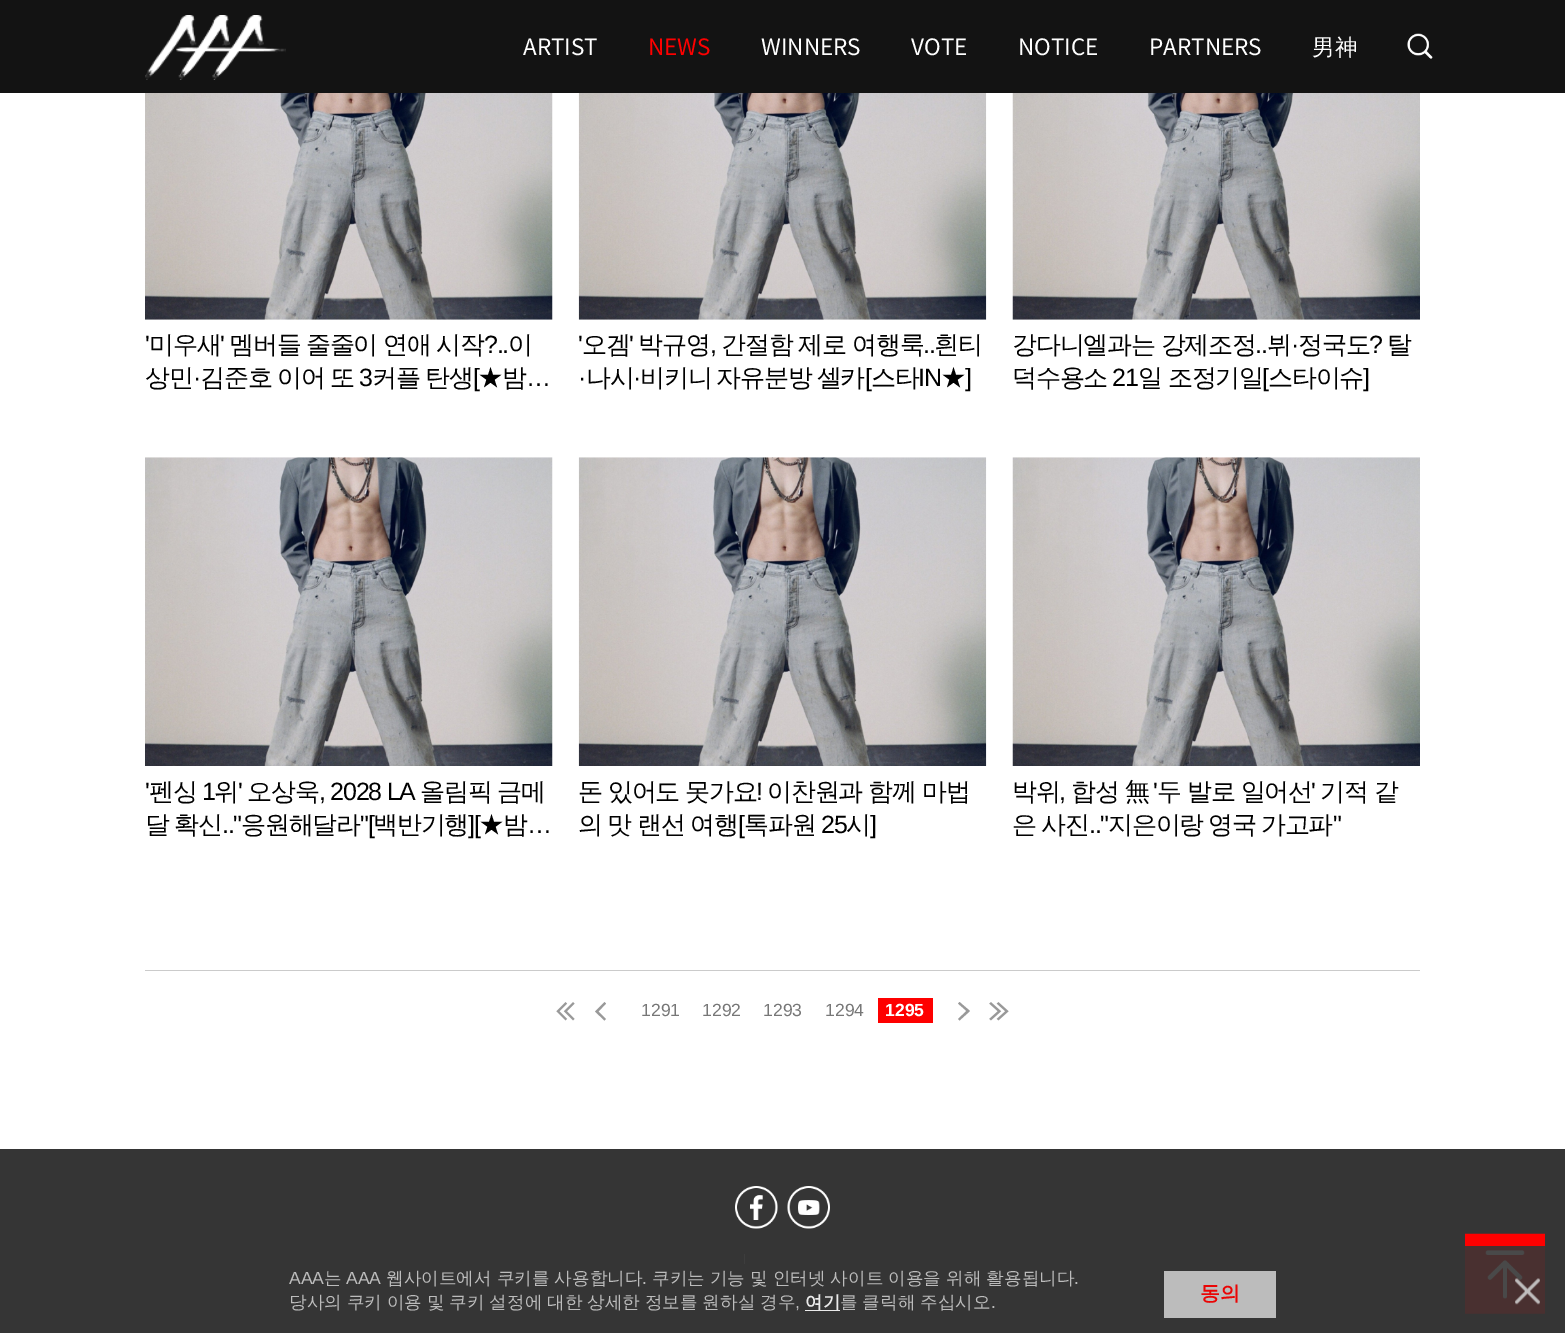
%!PS
<< /PageSize [1565 1333] /PageUsesTransparency true >> setpagedevice
/rgb { dup -16 bitshift 255 div exch dup -8 bitshift 255 and 255 div exch 255 and 255 div setrgbcolor } def
/font { [ exch dup neg 0 0 3 -1 roll 0 0 ] selectfont } def
/text { moveto show } def
/alpha { dup .setfillconstantalpha .setstrokeconstantalpha } def
/picture { 5 dict begin { /h /w /y /x /name } { exch def } forall
  gsave x y translate w h scale
  w h 8 [w 0 0 h 0 0] name (r) file false 3 colorimage grestore end } def
0 .pushpdf14devicefilter
0 1333 translate 1 -1 scale
4 setmiterlimit
/s1 { /NotoSansCJKKR-Regular 22.5 font 16#FFFFFF rgb } def
/s2 { /NotoSansCJKKR-Regular 22.5 font 16#FE0000 rgb } def
/s3 { /WenQuanYiZenHei-Medium 22.5 font 16#FFFFFF rgb } def
/s4 { /LiberationSans-Regular 17.6 font 16#777777 rgb } def
/s5 { /LiberationSans-Bold 17.6 font 16#FFFFFF rgb } def
/s6 { /LiberationSans-Regular 17.6 font 16#BCBCBC rgb } def
/s7 { /WenQuanYiZenHei-Medium 17.6 font 16#BCBCBC rgb } def
/s8 { /WenQuanYiZenHei-Bold 17.6 font 16#EBEBEB rgb } def
/s9 { /WenQuanYiZenHei-Bold 20 font 16#EA0505 rgb } def
16#FFFFFF rgb
0 0 1565 1333 rectfill
16#131313 rgb
0 0 1565 93 rectfill
(pic1.raw) 145 15 141 65 picture
s1
(ARTIST) 523 55 text
s2
(NEWS) 648 55 text
s1
(WINNERS) 761 55 text
(VOTE) 911 55 text
(NOTICE) 1018 55 text
(PARTNERS) 1149 55 text
s3
(男神) 1312 55 text
(pic2.raw) 1407 33 26 26 picture
(pic3.raw) 145 93 408 227 picture
/LiberationSans-Regular 25 font
16#000000 rgb
145 353 moveto -1.25 0 (') ashow
/WenQuanYiZenHei-Medium 25 font
149 353 moveto -1.25 0 (미우새) ashow
/LiberationSans-Regular 25 font
220 353 moveto -1.25 0 (') ashow
/WenQuanYiZenHei-Medium 25 font
229 353 moveto -0.5 0 32 -1.25 0 (멤버들 줄줄이 연애 시작) awidthshow
/LiberationSans-Regular 25 font
484 353 moveto -1.25 0 (?..) ashow
/WenQuanYiZenHei-Medium 25 font
508 353 moveto -1.25 0 (이) ashow
145 386 moveto -1.25 0 (상민) ashow
/LiberationSans-Regular 25 font
193 386 moveto -1.25 0 (·) ashow
/WenQuanYiZenHei-Medium 25 font
200 386 moveto -0.5 0 32 -1.25 0 (김준호 이어 또) awidthshow
/LiberationSans-Regular 25 font
359 386 moveto -1.25 0 (3) ashow
/WenQuanYiZenHei-Medium 25 font
372 386 moveto -0.5 0 32 -1.25 0 (커플 탄생) awidthshow
/LiberationSans-Regular 25 font
473 386 moveto -1.25 0 ([) ashow
/WenQuanYiZenHei-Medium 25 font
478 386 moveto -1.25 0 (★밤) ashow
/LiberationSans-Regular 25 font
526 386 moveto -1.25 0 (…) ashow
(pic4.raw) 578 93 409 227 picture
578 353 moveto -1.25 0 (') ashow
/WenQuanYiZenHei-Medium 25 font
582 353 moveto -1.25 0 (오겜) ashow
/LiberationSans-Regular 25 font
629 353 moveto -1.25 0 (') ashow
/WenQuanYiZenHei-Medium 25 font
638 353 moveto -1.25 0 (박규영) ashow
721 353 moveto -1.25 0 (간절함 제로 여행룩) ashow
934 353 moveto -1.25 0 (흰티) ashow
/LiberationSans-Regular 25 font
710 353 moveto -1.25 0 (,) ashow
923 353 moveto -1.25 0 (..) ashow
578 386 moveto -1.25 0 (·) ashow
/WenQuanYiZenHei-Medium 25 font
586 386 moveto -1.25 0 (나시) ashow
/LiberationSans-Regular 25 font
633 386 moveto -1.25 0 (·) ashow
/WenQuanYiZenHei-Medium 25 font
640 386 moveto -1 0 32 -1.25 0 (비키니 자유분방 셀카) awidthshow
/LiberationSans-Regular 25 font
865 386 moveto -1.25 0 ([) ashow
/WenQuanYiZenHei-Medium 25 font
871 386 moveto -1.25 0 (스타) ashow
/LiberationSans-Regular 25 font
918 386 moveto -1.25 0 (IN) ashow
/WenQuanYiZenHei-Medium 25 font
941 386 moveto -1.25 0 (★) ashow
/LiberationSans-Regular 25 font
965 386 moveto -1.25 0 (]) ashow
(pic5.raw) 1012 93 408 227 picture
/WenQuanYiZenHei-Medium 25 font
1012 353 moveto -1.25 0 (강다니엘과는 강제조정) ashow
1267 353 moveto -1.25 0 (뷔) ashow
/LiberationSans-Regular 25 font
1291 353 moveto -1.25 0 (·) ashow
/WenQuanYiZenHei-Medium 25 font
1298 353 moveto -1.25 0 (정국도) ashow
/LiberationSans-Regular 25 font
1369 353 moveto -1.25 0 (?) ashow
/WenQuanYiZenHei-Medium 25 font
1387 353 moveto -1.25 0 (탈) ashow
/LiberationSans-Regular 25 font
1255 353 moveto -1.25 0 (..) ashow
/WenQuanYiZenHei-Medium 25 font
1012 386 moveto -1.25 0 (덕수용소) ashow
/LiberationSans-Regular 25 font
1112 386 moveto -1.25 0 (21) ashow
/WenQuanYiZenHei-Medium 25 font
1138 386 moveto -1.25 0 (일 조정기일) ashow
/LiberationSans-Regular 25 font
1262 386 moveto -1.25 0 ([) ashow
/WenQuanYiZenHei-Medium 25 font
1268 386 moveto -1.25 0 (스타이슈) ashow
/LiberationSans-Regular 25 font
1363 386 moveto -1.25 0 (]) ashow
(pic6.raw) 145 457 408 309 picture
145 800 moveto -1.25 0 (') ashow
/WenQuanYiZenHei-Medium 25 font
149 800 moveto -1.25 0 (펜싱) ashow
/LiberationSans-Regular 25 font
202 800 moveto -1.25 0 (1) ashow
/WenQuanYiZenHei-Medium 25 font
214 800 moveto -1.25 0 (위) ashow
/LiberationSans-Regular 25 font
238 800 moveto -1.25 0 (') ashow
/WenQuanYiZenHei-Medium 25 font
247 800 moveto -1.25 0 (오상욱) ashow
/LiberationSans-Regular 25 font
319 800 moveto -1.25 0 (, 2028 LA) ashow
/WenQuanYiZenHei-Medium 25 font
420 800 moveto -1.25 0 (올림픽) ashow
497 800 moveto -1.25 0 (금메) ashow
145 833 moveto -1 0 32 -1.25 0 (달 확신) awidthshow
/LiberationSans-Regular 25 font
222 833 moveto -1.25 0 (..") ashow
/WenQuanYiZenHei-Medium 25 font
241 833 moveto -1.25 0 (응원해달라) ashow
/LiberationSans-Regular 25 font
360 833 moveto -1.25 0 ("[) ashow
/WenQuanYiZenHei-Medium 25 font
373 833 moveto -1.25 0 (백반기행) ashow
/LiberationSans-Regular 25 font
468 833 moveto -1.25 0 (][) ashow
/WenQuanYiZenHei-Medium 25 font
479 833 moveto -1.25 0 (★밤) ashow
/LiberationSans-Regular 25 font
527 833 moveto -1.25 0 (…) ashow
(pic7.raw) 578 457 409 309 picture
/WenQuanYiZenHei-Medium 25 font
578 800 moveto -1.25 0 (돈 있어도 못가요) ashow
/LiberationSans-Regular 25 font
756 800 moveto -1.25 0 (!) ashow
/WenQuanYiZenHei-Medium 25 font
767 800 moveto -1.25 0 (이찬원과 함께 마법) ashow
578 833 moveto -0.5 0 32 -1.25 0 (의 맛 랜선 여행) awidthshow
/LiberationSans-Regular 25 font
738 833 moveto -1.25 0 ([) ashow
/WenQuanYiZenHei-Medium 25 font
744 833 moveto -1.25 0 (톡파원) ashow
/LiberationSans-Regular 25 font
821 833 moveto -1.25 0 (25) ashow
/WenQuanYiZenHei-Medium 25 font
846 833 moveto -1.25 0 (시) ashow
/LiberationSans-Regular 25 font
870 833 moveto -1.25 0 (]) ashow
(pic8.raw) 1012 457 408 309 picture
/WenQuanYiZenHei-Medium 25 font
1012 800 moveto -1.25 0 (박위) ashow
1071 800 moveto -1.25 0 (합성 無) ashow
/LiberationSans-Regular 25 font
1153 800 moveto -1.25 0 (') ashow
/WenQuanYiZenHei-Medium 25 font
1157 800 moveto -1.25 0 (두 발로 일어선) ashow
/LiberationSans-Regular 25 font
1311 800 moveto -1.25 0 (') ashow
/WenQuanYiZenHei-Medium 25 font
1320 800 moveto -1.25 0 (기적 같) ashow
/LiberationSans-Regular 25 font
1059 800 moveto -1.25 0 (,) ashow
/WenQuanYiZenHei-Medium 25 font
1012 833 moveto -1 0 32 -1.25 0 (은 사진) awidthshow
/LiberationSans-Regular 25 font
1089 833 moveto -1.25 0 (..") ashow
/WenQuanYiZenHei-Medium 25 font
1108 833 moveto -1 0 32 -1.25 0 (지은이랑 영국 가고파) awidthshow
/LiberationSans-Regular 25 font
1333 833 moveto -1.25 0 (") ashow
16#CBCBCB rgb
145 970 1275 1 rectfill
(pic9.raw) 556 1002 19 19 picture
16#999999 rgb
606 1003.5 moveto 604.5 1002 lineto 595 1011.5 lineto 604.5 1020.5 lineto 606 1019 lineto 598.5 1011.5 lineto closepath fill
s4
(1291) 641 1016 text
(1292) 702 1016 text
(1293) 763 1016 text
(1294) 825 1016 text
16#FE0000 rgb
878 998 55 25 rectfill
s5
(1295) 885 1016 text
16#999999 rgb
958 1019 moveto 959.5 1020.5 lineto 970 1011 lineto 959.5 1002 lineto 958 1003.5 lineto 966.5 1011 lineto closepath fill
(pic10.raw) 989 1002 20 19 picture
16#353535 rgb
0 1149 1565 184 rectfill
(pic11.raw) 735 1186 43 43 picture
(pic12.raw) 787 1186 43 43 picture
16#898989 rgb
744 1254 1 10 rectfill
(pic14.raw) 1465 1233 80 81 picture
0.9 alpha
16#353535 rgb
744 1246 801 68 rectfill
1 alpha
s6
(AAA) 289 1284 text
s7
(는) 324 1284 text
s6
(AAA) 346 1284 text
/WenQuanYiZenHei-Medium 17.6 font
386 1284 moveto -0.25 0 32 (웹사이트에서 쿠키를 사용합니다) widthshow
s6
(.) 642 1284 text
/WenQuanYiZenHei-Medium 17.6 font
652 1284 moveto -0.25 0 32 (쿠키는 기능 및 인터넷 사이트 이용을 위해 활용됩니다) widthshow
s6
(.) 1074 1284 text
/WenQuanYiZenHei-Medium 17.6 font
289 1308 moveto -0.4 0 32 (당사의 쿠키 이용 및 쿠키 설정에 대한 상세한 정보를 원하실 경우) widthshow
s6
(,) 795 1308 text
16#EBEBEB rgb
805 1310 35 1 rectfill
s8
(여기) 805 1308 text
/WenQuanYiZenHei-Medium 17.6 font
16#BCBCBC rgb
840 1308 moveto -0.4 0 32 (를 클릭해 주십시오) widthshow
s6
(.) 991 1308 text
1164 1271 112 47 rectfill
s9
(동의) 1200 1300 text
(pic13.raw) 1515 1278 25 27 picture
.poppdf14devicefilter showpage
